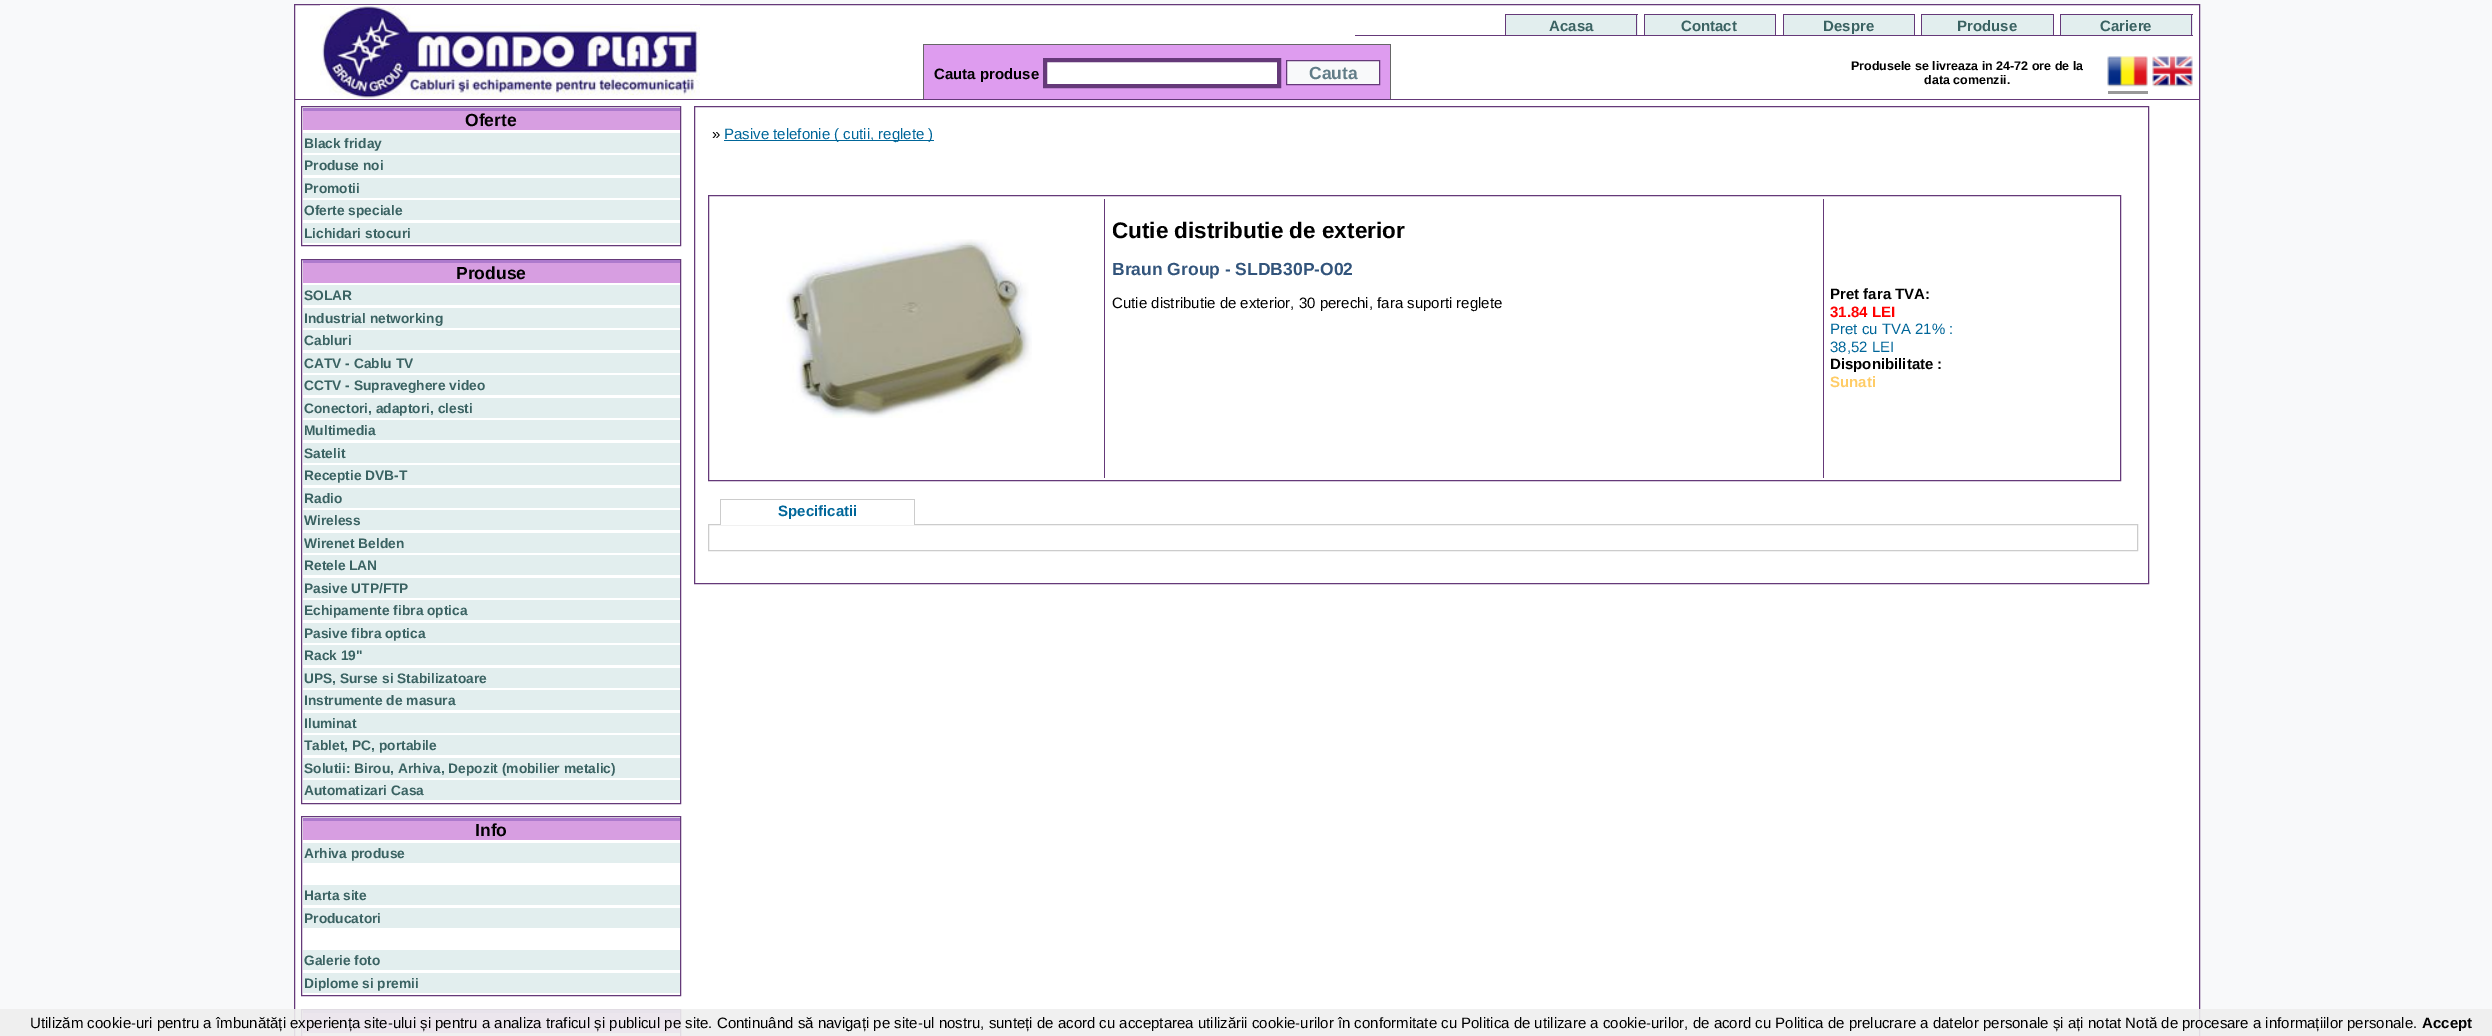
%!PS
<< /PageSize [2492 1036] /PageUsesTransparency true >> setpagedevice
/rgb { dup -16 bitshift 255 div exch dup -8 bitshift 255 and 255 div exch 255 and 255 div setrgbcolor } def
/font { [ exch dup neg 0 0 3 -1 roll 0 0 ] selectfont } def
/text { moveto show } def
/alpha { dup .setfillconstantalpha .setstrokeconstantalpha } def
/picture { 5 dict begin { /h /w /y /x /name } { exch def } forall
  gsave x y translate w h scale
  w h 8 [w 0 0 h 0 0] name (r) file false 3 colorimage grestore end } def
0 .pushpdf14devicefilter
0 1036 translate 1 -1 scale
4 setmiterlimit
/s1 { /LiberationSans-Bold 15 font 16#3A6262 rgb } def
/s2 { /LiberationSans-Bold 15 font 16#000000 rgb } def
/s3 { /LiberationSans-Bold 17.5 font 16#617C87 rgb } def
/s4 { /LiberationSans-Bold 12.5 font 16#000000 rgb } def
/s5 { /LiberationSans-Bold 17.5 font 16#000000 rgb } def
/s6 { /LiberationSans-Bold 13.75 font 16#3A6262 rgb } def
/s7 { /LiberationSans-Regular 15 font 16#000000 rgb } def
/s8 { /LiberationSans-Regular 15 font 16#006699 rgb } def
/s9 { /LiberationSans-Bold 22.5 font 16#000000 rgb } def
/s10 { /LiberationSans-Bold 17.5 font 16#32547B rgb } def
/s11 { /LiberationSans-Bold 15 font 16#FF0000 rgb } def
/s12 { /LiberationSans-Bold 15 font 16#FFCC66 rgb } def
/s13 { /LiberationSans-Bold 15 font 16#006699 rgb } def
16#F8F9FA rgb
0 0 2492 1036 rectfill
16#FFFFFF rgb
294.5 4.5 moveto 2199.5 4.5 lineto 2199.5 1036.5 lineto 294.5 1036.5 lineto closepath gsave fill grestore
16#653979 rgb
stroke
295 99 1904 1 rectfill
(pic1.raw) 320 5 380 94 picture
1355 35 838 1 rectfill
16#E2EEEE rgb
1506 15 132 20 rectfill
16#653979 rgb
1505 14 133 1 rectfill
1636 14 1 21 rectfill
1505 14 1 21 rectfill
s1
(Acasa) 1549 31 text
16#E2EEEE rgb
1645 15 130 20 rectfill
16#653979 rgb
1644 14 132 1 rectfill
1775 14 1 21 rectfill
1644 14 1 21 rectfill
s1
(Contact) 1681 31 text
16#E2EEEE rgb
1784 15 130 20 rectfill
16#653979 rgb
1783 14 132 1 rectfill
1914 14 1 21 rectfill
1783 14 1 21 rectfill
s1
(Despre) 1823 31 text
16#E2EEEE rgb
1922 15 131 20 rectfill
16#653979 rgb
1921 14 133 1 rectfill
2053 14 1 21 rectfill
1921 14 1 21 rectfill
s1
(Produse) 1957 31 text
16#E2EEEE rgb
2061 15 132 20 rectfill
16#653979 rgb
2060 14 133 1 rectfill
2191 14 1 21 rectfill
2060 14 1 21 rectfill
s1
(Cariere) 2100 31 text
16#DE9CEF rgb
924 45 466 54 rectfill
16#666666 rgb
923 44 468 1 rectfill
1390 44 1 55 rectfill
923 44 1 55 rectfill
s2
(Cauta produse) 934 79 text
16#FFFFFF rgb
1045 60 moveto 1279 60 lineto 1279 86 lineto 1045 86 lineto closepath gsave fill grestore
16#653979 rgb
4 setlinewidth
stroke
16#F8F9FA rgb
1286.5 60.5 moveto 1379.5 60.5 lineto 1379.5 84.5 lineto 1286.5 84.5 lineto closepath gsave fill grestore
16#653979 rgb
1 setlinewidth
stroke
s3
(Cauta) 1309 79 text
s4
(Produsele se livreaza in 24-72 ore de la) 1851 70 text
(data comenzii.) 1924 84 text
(pic2.raw) 2107 56 41 31 picture
(pic3.raw) 2152 56 41 31 picture
16#999999 rgb
2108 91 40 3 rectfill
16#653979 rgb
301.5 106.5 379 139 rectstroke
16#D79EE1 rgb
303 111 377 19 rectfill
16#AD7ACD rgb
303 108 377 3 rectfill
s5
(Oferte) 465 126 text
16#E2EEEE rgb
303 133 377 20 rectfill
s6
(Black friday) 304 148 text
16#E2EEEE rgb
303 155 377 20 rectfill
s6
(Produse noi) 304 170 text
16#E2EEEE rgb
303 178 377 20 rectfill
s6
(Promotii) 304 193 text
16#E2EEEE rgb
303 200 377 20 rectfill
s6
(Oferte speciale) 304 215 text
16#E2EEEE rgb
303 223 377 20 rectfill
s6
(Lichidari stocuri) 304 238 text
16#653979 rgb
301.5 259.5 379 544 rectstroke
16#D79EE1 rgb
303 263 377 20 rectfill
16#AD7ACD rgb
303 260 377 3 rectfill
s5
(Produse) 456 279 text
16#E2EEEE rgb
303 285 377 20 rectfill
s6
(SOLAR) 304 300 text
16#E2EEEE rgb
303 308 377 20 rectfill
s6
(Industrial networking) 304 323 text
16#E2EEEE rgb
303 330 377 20 rectfill
s6
(Cabluri) 304 345 text
16#E2EEEE rgb
303 353 377 20 rectfill
s6
(CATV - Cablu TV) 304 368 text
16#E2EEEE rgb
303 375 377 20 rectfill
s6
(CCTV - Supraveghere video) 304 390 text
16#E2EEEE rgb
303 398 377 20 rectfill
s6
(Conectori, adaptori, clesti) 304 413 text
16#E2EEEE rgb
303 420 377 20 rectfill
s6
(Multimedia) 304 435 text
16#E2EEEE rgb
303 443 377 20 rectfill
s6
(Satelit) 304 458 text
16#E2EEEE rgb
303 465 377 20 rectfill
s6
(Receptie DVB-T) 304 480 text
16#E2EEEE rgb
303 488 377 20 rectfill
s6
(Radio) 304 503 text
16#E2EEEE rgb
303 510 377 20 rectfill
s6
(Wireless) 304 525 text
16#E2EEEE rgb
303 533 377 20 rectfill
s6
(Wirenet Belden) 304 548 text
16#E2EEEE rgb
303 555 377 20 rectfill
s6
(Retele LAN) 304 570 text
16#E2EEEE rgb
303 578 377 20 rectfill
s6
(Pasive UTP/FTP) 304 593 text
16#E2EEEE rgb
303 600 377 20 rectfill
s6
(Echipamente fibra optica) 304 615 text
16#E2EEEE rgb
303 623 377 20 rectfill
s6
(Pasive fibra optica) 304 638 text
16#E2EEEE rgb
303 645 377 20 rectfill
s6
(Rack 19") 304 660 text
16#E2EEEE rgb
303 668 377 20 rectfill
s6
(UPS, Surse si Stabilizatoare) 304 683 text
16#E2EEEE rgb
303 690 377 20 rectfill
s6
(Instrumente de masura) 304 705 text
16#E2EEEE rgb
303 713 377 20 rectfill
s6
(Iluminat) 304 728 text
16#E2EEEE rgb
303 735 377 20 rectfill
s6
(Tablet, PC, portabile) 304 750 text
16#E2EEEE rgb
303 758 377 20 rectfill
s6
(Solutii: Birou, Arhiva, Depozit \(mobilier metalic\)) 304 773 text
16#E2EEEE rgb
303 780 377 20 rectfill
s6
(Automatizari Casa) 304 795 text
16#653979 rgb
301.5 816.5 379 179 rectstroke
16#D79EE1 rgb
303 821 377 19 rectfill
16#AD7ACD rgb
303 818 377 3 rectfill
s5
(Info) 475 836 text
16#E2EEEE rgb
303 843 377 20 rectfill
s6
(Arhiva produse) 304 858 text
16#E2EEEE rgb
303 885 377 20 rectfill
s6
(Harta site) 304 900 text
16#E2EEEE rgb
303 908 377 20 rectfill
s6
(Producatori) 304 923 text
16#E2EEEE rgb
303 950 377 20 rectfill
s6
(Galerie foto) 304 965 text
16#E2EEEE rgb
303 973 377 20 rectfill
s6
(Diplome si premii) 304 988 text
16#653979 rgb
301.5 1009.5 379 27 rectstroke
16#D79EE1 rgb
303 1013 377 20 rectfill
16#AD7ACD rgb
303 1010 377 3 rectfill
16#653979 rgb
694.5 106.5 1454 477 rectstroke
s7
(») 712 139 text
16#006699 rgb
724 140 210 1 rectfill
(Pasive telefonie \( cutii, reglete \)) 724 139 text
16#653979 rgb
708.5 195.5 1412 285 rectstroke
1104 199 1 279 rectfill
(pic4.raw) 782 239 250 179 picture
1823 199 1 279 rectfill
s9
(Cutie distributie de exterior) 1112 238 text
s10
(Braun Group - SLDB30P-O02) 1112 275 text
s7
(Cutie distributie de exterior, 30 perechi, fara suporti reglete) 1112 308 text
s2
(Pret fara TVA:) 1830 299 text
s11
(31.84 LEI) 1830 317 text
s8
(Pret cu TVA 21% :) 1830 334 text
(38,52 LEI) 1830 352 text
s2
(Disponibilitate :) 1830 369 text
s12
(Sunati) 1830 387 text
16#CCCCCC rgb
708.5 524.5 1429 26 rectstroke
16#FFFFFF rgb
721 524 193 1 rectfill
16#CCCCCC rgb
720 499 195 1 rectfill
914 499 1 26 rectfill
720 499 1 26 rectfill
s13
(Specificatii) 778 516 text
0.9 alpha
16#EEEEEE rgb
0 1009 2492 27 rectfill
1 alpha
s7
(Utilizăm cookie-uri pentru a îmbunătăți experiența site-ului și pentru a analiza traficul și publicul pe site. Continuând să navigați pe site-ul nostru, sunteți de acord cu acceptarea utilizării cookie-urilor în conformitate cu Politica de utilizare a cookie-urilor, de acord cu Politica de prelucrare a datelor personale și ați notat Notă de procesare a informațiilor personale.) 30 1028 text
s2
(Accept) 2422 1028 text
.poppdf14devicefilter showpage
